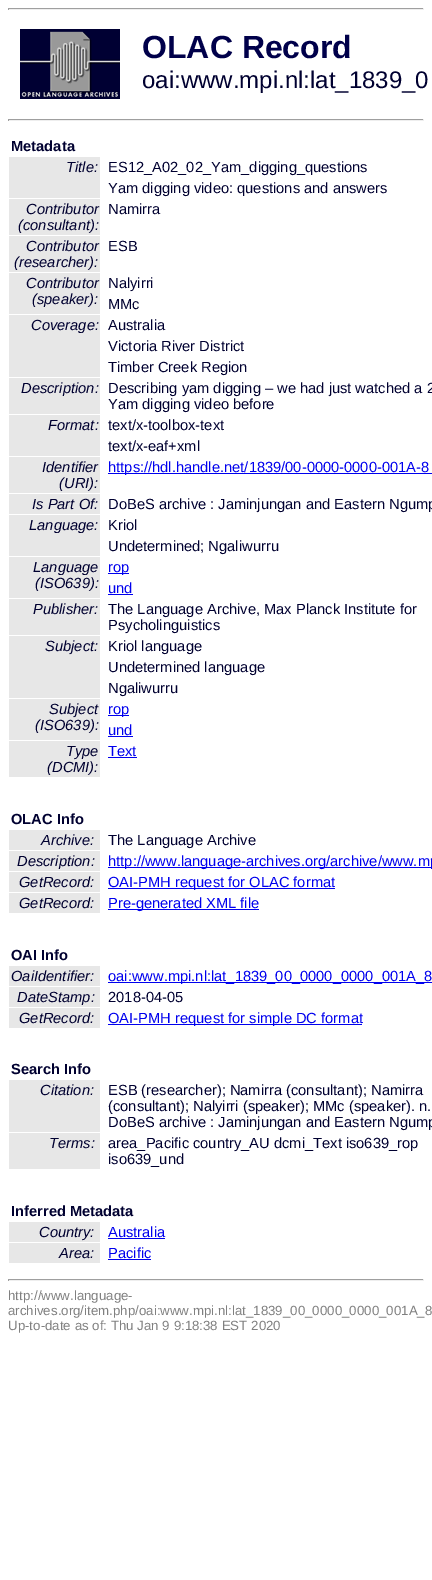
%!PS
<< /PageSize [432 1580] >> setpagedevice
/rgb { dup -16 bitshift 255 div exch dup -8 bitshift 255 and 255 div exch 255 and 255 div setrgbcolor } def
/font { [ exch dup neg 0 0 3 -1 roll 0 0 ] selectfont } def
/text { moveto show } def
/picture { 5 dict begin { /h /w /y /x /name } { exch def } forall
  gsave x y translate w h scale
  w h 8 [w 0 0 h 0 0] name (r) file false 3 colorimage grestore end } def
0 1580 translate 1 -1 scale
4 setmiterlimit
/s1 { /LiberationSans-Bold 32 font 16#00004A rgb } def
/s2 { /LiberationSans-Regular 24 font 16#000030 rgb } def
/s3 { /LiberationSans-Bold 14.7 font 16#000030 rgb } def
/s4 { /LiberationSans-Italic 14.7 font 16#000030 rgb } def
/s5 { /LiberationSans-Regular 14.7 font 16#000030 rgb } def
/s6 { /LiberationSans-Regular 14.7 font 16#0000EE rgb } def
/s7 { /LiberationSans-Regular 13.3 font 16#808080 rgb } def
16#FFFFFF rgb
0 0 432 1580 rectfill
16#9F9F9F rgb
8 8 416 1 rectfill
16#EEEEEE rgb
423 8 1 2 rectfill
8 9 416 1 rectfill
16#9F9F9F rgb
8 8 1 2 rectfill
(pic1.raw) 20 29 100 70 picture
s1
(OLAC Record) 142 58 text
s2
(oai:www.mpi.nl:lat_1839_0) 142 88 text
16#9F9F9F rgb
8 119 416 1 rectfill
16#EEEEEE rgb
423 119 1 2 rectfill
8 120 416 1 rectfill
16#9F9F9F rgb
8 119 1 2 rectfill
s3
(Metadata) 11 151 text
16#E7E7E7 rgb
9 157 91 41 rectfill
s4
(Title:) 66 172 text
s5
(ES12_A02_02_Yam_digging_questions) 108 172 text
(Yam digging video: questions and answers) 108 193 text
16#E7E7E7 rgb
9 199 91 36 rectfill
s4
(Contributor) 26 214 text
(\(consultant\):) 18 230 text
s5
(Namirra) 108 214 text
16#E7E7E7 rgb
9 236 91 36 rectfill
s4
(Contributor) 26 251 text
(\(researcher\):) 14 267 text
s5
(ESB) 108 251 text
16#E7E7E7 rgb
9 273 91 41 rectfill
s4
(Contributor) 26 288 text
(\(speaker\):) 32 304 text
s5
(Nalyirri) 108 288 text
(MMc) 108 309 text
16#E7E7E7 rgb
9 315 91 62 rectfill
s4
(Coverage:) 31 330 text
s5
(Australia) 108 330 text
(Victoria River District) 108 351 text
(Timber Creek Region) 108 372 text
16#E7E7E7 rgb
9 378 91 36 rectfill
s4
(Description:) 21 393 text
s5
(Describing yam digging – we had just watched a 2) 108 393 text
(Yam digging video before) 108 409 text
16#E7E7E7 rgb
9 415 91 41 rectfill
s4
(Format:) 48 430 text
s5
(text/x-toolbox-text) 108 430 text
(text/x-eaf+xml) 108 451 text
16#E7E7E7 rgb
9 457 91 36 rectfill
s4
(Identifier) 42 472 text
(\(URI\):) 59 488 text
16#0000EE rgb
108 473 324 1 rectfill
s6
(https://hdl.handle.net/1839/00-0000-0000-001A-8) 108 472 text
16#E7E7E7 rgb
9 494 91 20 rectfill
s4
(Is Part Of:) 32 509 text
s5
(DoBeS archive : Jaminjungan and Eastern Ngump) 108 509 text
16#E7E7E7 rgb
9 515 91 41 rectfill
s4
(Language:) 29 530 text
s5
(Kriol) 108 530 text
(Undetermined; Ngaliwurru) 108 551 text
16#E7E7E7 rgb
9 557 91 41 rectfill
s4
(Language) 33 572 text
(\(ISO639\):) 35 588 text
16#0000EE rgb
108 573 21 1 rectfill
s6
(rop) 108 572 text
(und) 108 593 text
108 594 25 1 rectfill
16#E7E7E7 rgb
9 599 91 36 rectfill
s4
(Publisher:) 33 614 text
s5
(The Language Archive, Max Planck Institute for) 108 614 text
(Psycholinguistics) 108 630 text
16#E7E7E7 rgb
9 636 91 62 rectfill
s4
(Subject:) 45 651 text
s5
(Kriol language) 108 651 text
(Undetermined language) 108 672 text
(Ngaliwurru) 108 693 text
16#E7E7E7 rgb
9 699 91 41 rectfill
s4
(Subject) 49 714 text
(\(ISO639\):) 35 730 text
16#0000EE rgb
108 715 21 1 rectfill
s6
(rop) 108 714 text
(und) 108 735 text
108 736 25 1 rectfill
16#E7E7E7 rgb
9 741 91 36 rectfill
s4
(Type) 66 756 text
(\(DCMI\):) 47 772 text
s6
(Text) 108 756 text
108 757 29 1 rectfill
s3
(OLAC Info) 11 824 text
16#E7E7E7 rgb
9 830 91 20 rectfill
s4
(Archive:) 41 845 text
s5
(The Language Archive) 108 845 text
16#E7E7E7 rgb
9 851 91 20 rectfill
s4
(Description:) 17 866 text
16#0000EE rgb
108 867 324 1 rectfill
s6
(http://www.language-archives.org/archive/www.mp) 108 866 text
16#E7E7E7 rgb
9 872 91 20 rectfill
s4
(GetRecord:) 19 887 text
16#0000EE rgb
108 888 227 1 rectfill
s6
(OAI-PMH request for OLAC format) 108 887 text
16#E7E7E7 rgb
9 893 91 20 rectfill
s4
(GetRecord:) 19 908 text
16#0000EE rgb
108 909 151 1 rectfill
s6
(Pre-generated XML file) 108 908 text
s3
(OAI Info) 11 960 text
16#E7E7E7 rgb
9 966 91 20 rectfill
s4
(OaiIdentifier:) 11 981 text
16#0000EE rgb
108 982 324 1 rectfill
s6
(oai:www.mpi.nl:lat_1839_00_0000_0000_001A_8) 108 981 text
16#E7E7E7 rgb
9 987 91 20 rectfill
s4
(DateStamp:) 17 1002 text
s5
(2018-04-05) 108 1002 text
16#E7E7E7 rgb
9 1008 91 20 rectfill
s4
(GetRecord:) 19 1023 text
16#0000EE rgb
108 1024 254 1 rectfill
s6
(OAI-PMH request for simple DC format) 108 1023 text
s3
(Search Info) 11 1074 text
16#E7E7E7 rgb
9 1080 91 52 rectfill
s4
(Citation:) 40 1095 text
s5
(ESB \(researcher\); Namirra \(consultant\); Namirra) 108 1095 text
(\(consultant\); Nalyirri \(speaker\); MMc \(speaker\). n.) 108 1111 text
(DoBeS archive : Jaminjungan and Eastern Ngump) 108 1127 text
16#E7E7E7 rgb
9 1133 91 36 rectfill
s4
(Terms:) 49 1148 text
s5
(area_Pacific country_AU dcmi_Text iso639_rop) 108 1148 text
(iso639_und) 108 1164 text
s3
(Inferred Metadata) 11 1216 text
16#E7E7E7 rgb
9 1222 91 20 rectfill
s4
(Country:) 39 1237 text
s6
(Australia) 108 1237 text
108 1238 57 1 rectfill
16#E7E7E7 rgb
9 1243 91 20 rectfill
s4
(Area:) 59 1258 text
s6
(Pacific) 108 1258 text
108 1259 43 1 rectfill
16#9F9F9F rgb
8 1279 416 1 rectfill
16#EEEEEE rgb
423 1279 1 2 rectfill
8 1280 416 1 rectfill
16#9F9F9F rgb
8 1279 1 2 rectfill
s7
(http://www.language-) 8 1300 text
(archives.org/item.php/oai:www.mpi.nl:lat_1839_00_0000_0000_001A_8) 8 1315 text
(Up-to-date as of: Thu Jan 9 9:18:38 EST 2020) 8 1330 text
showpage
